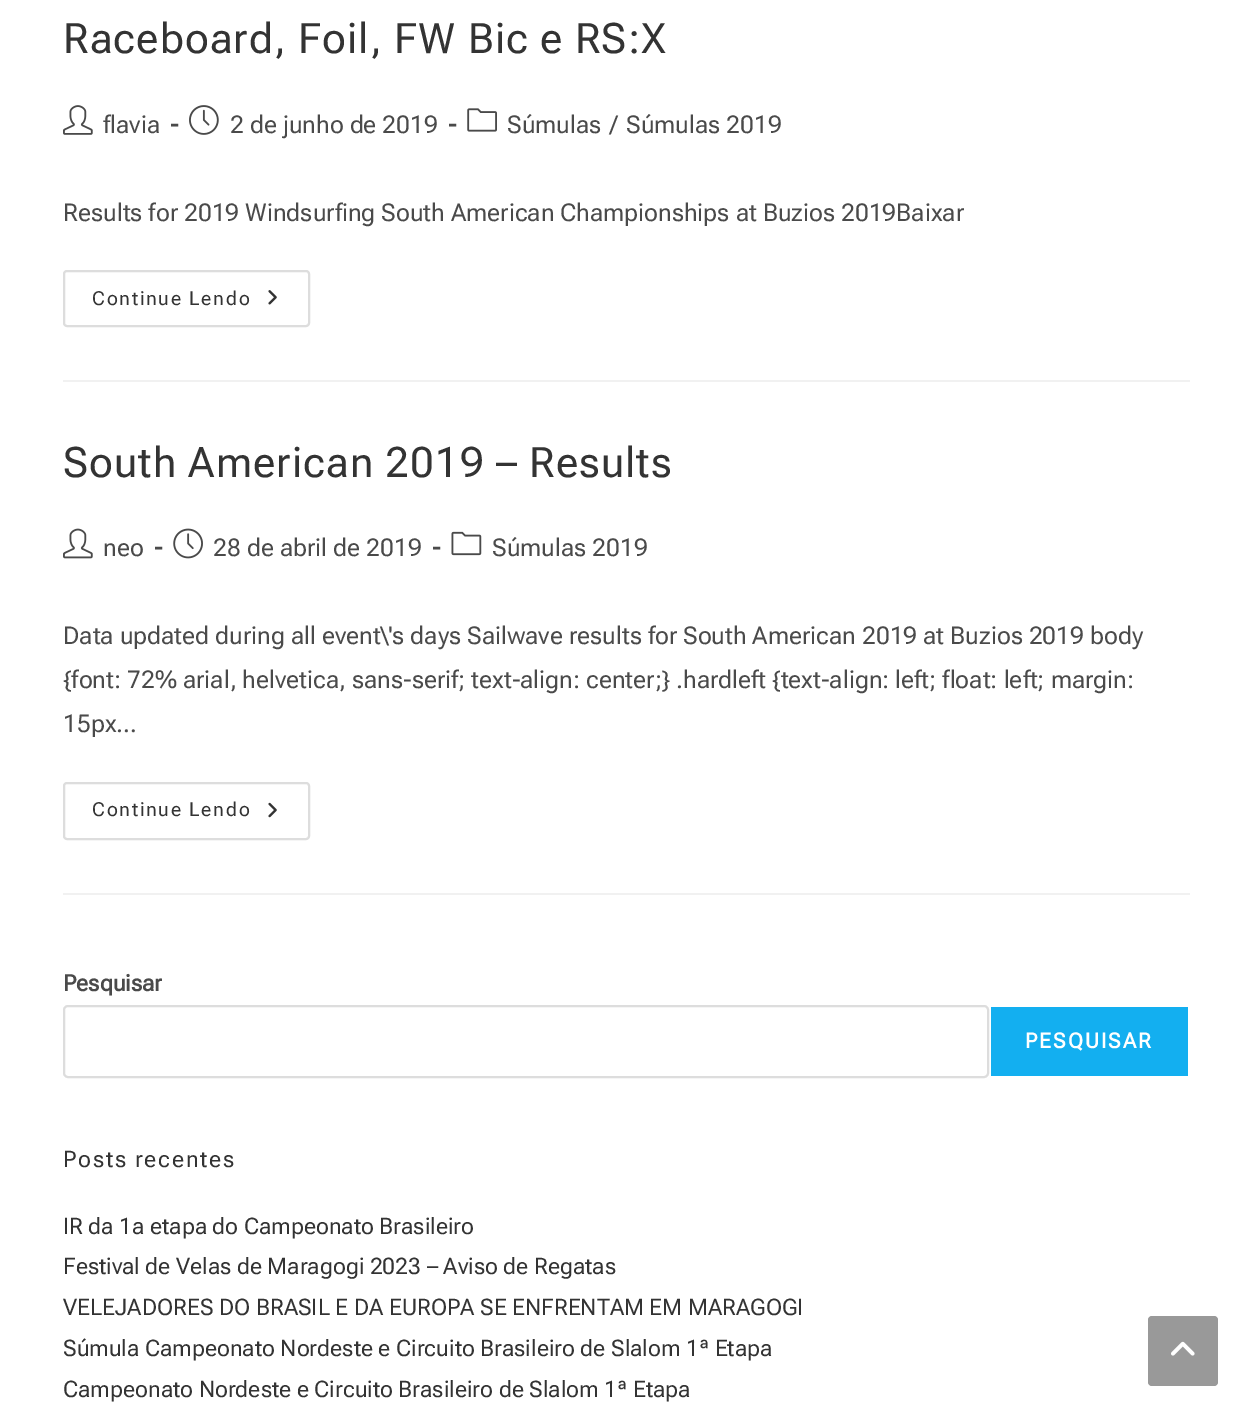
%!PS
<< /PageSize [1253 1421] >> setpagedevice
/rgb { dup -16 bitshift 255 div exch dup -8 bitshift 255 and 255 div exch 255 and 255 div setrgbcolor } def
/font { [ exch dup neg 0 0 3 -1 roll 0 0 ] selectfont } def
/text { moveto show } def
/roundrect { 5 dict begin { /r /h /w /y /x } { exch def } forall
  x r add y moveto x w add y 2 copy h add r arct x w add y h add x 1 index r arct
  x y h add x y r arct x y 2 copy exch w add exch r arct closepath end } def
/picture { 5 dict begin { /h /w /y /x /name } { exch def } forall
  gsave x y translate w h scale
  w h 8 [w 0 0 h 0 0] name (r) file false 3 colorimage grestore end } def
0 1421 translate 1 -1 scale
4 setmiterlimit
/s1 { /RobotoFlex-Regular 24.5 font 16#4A4A4A rgb } def
/s2 { /RobotoFlex-Bold 24.5 font 16#4A4A4A rgb } def
/s3 { /RobotoFlex-Bold 22.75 font 16#4A4A4A rgb } def
/s4 { /RobotoFlex-Regular 22.75 font 16#333333 rgb } def
16#FFFFFF rgb
0 0 1253 1421 rectfill
16#F1F1F1 rgb
63 380 1127 2 rectfill
/RobotoFlex-Regular 42 font
16#333333 rgb
63 53 moveto 1.05 0 (Raceboard, Foil, FW Bic e RS:X) ashow
(pic1.raw) 63 105 30 30 picture
s1
(flavia) 103 133 text
s2
(-) 170 133 text
(pic2.raw) 189 105 30 30 picture
s1
(2 de junho de 2019) 230 133 text
s2
(-) 448 133 text
(pic3.raw) 467 108 30 24 picture
s1
(Súmulas) 507 133 text
(/) 610 133 text
(Súmulas 2019) 626 133 text
(Results for 2019 Windsurfing South American Championships at Buzios 2019Baixar) 63 221 text
16#DDDDDD rgb
2 setlinewidth
64 271 245 55 3 roundrect stroke
/RobotoFlex-Regular 19.25 font
16#333333 rgb
92 305 moveto 1.75 0 (Continue Lendo) ashow
(pic4.raw) 268 290 9 15 picture
16#F1F1F1 rgb
63 893 1127 2 rectfill
/RobotoFlex-Regular 42 font
16#333333 rgb
63 477 moveto 1.05 0 (South American 2019 – Results) ashow
(pic5.raw) 63 528 30 31 picture
s1
(neo) 103 556 text
s2
(-) 154 556 text
(pic6.raw) 173 528 30 31 picture
s1
(28 de abril de 2019) 213 556 text
s2
(-) 432 556 text
(pic7.raw) 451 531 31 25 picture
s1
(Súmulas 2019) 492 556 text
(Data updated during all event\\'s days Sailwave results for South American 2019 at Buzios 2019 body) 63 644 text
({font: 72% arial, helvetica, sans-serif; text-align: center;} .hardleft {text-align: left; float: left; margin:) 63 688 text
(15px…) 63 732 text
16#DDDDDD rgb
64 783 245 56 3 roundrect stroke
/RobotoFlex-Regular 19.25 font
16#333333 rgb
92 816 moveto 1.75 0 (Continue Lendo) ashow
(pic8.raw) 268 802 9 16 picture
s3
(Pesquisar) 63 991 text
16#DDDDDD rgb
64 1006 924 71 4 roundrect stroke
16#13AFF0 rgb
991 1007 197 69 rectfill
/RobotoFlex-Bold 21 font
16#FFFFFF rgb
1025 1048 moveto 2 0 (PESQUISAR) ashow
/RobotoFlex-Regular 22.75 font
16#333333 rgb
63 1167 moveto 1.75 0 (Posts recentes) ashow
(IR da 1a etapa do Campeonato Brasileiro) 63 1234 text
(Festival de Velas de Maragogi 2023 – Aviso de Regatas) 63 1274 text
(VELEJADORES DO BRASIL E DA EUROPA SE ENFRENTAM EM MARAGOGI) 63 1315 text
(Súmula Campeonato Nordeste e Circuito Brasileiro de Slalom 1ª Etapa) 63 1356 text
(Campeonato Nordeste e Circuito Brasileiro de Slalom 1ª Etapa) 63 1397 text
16#999999 rgb
1148 1316 70 70 4 roundrect fill
(pic9.raw) 1171 1341 24 15 picture
showpage
